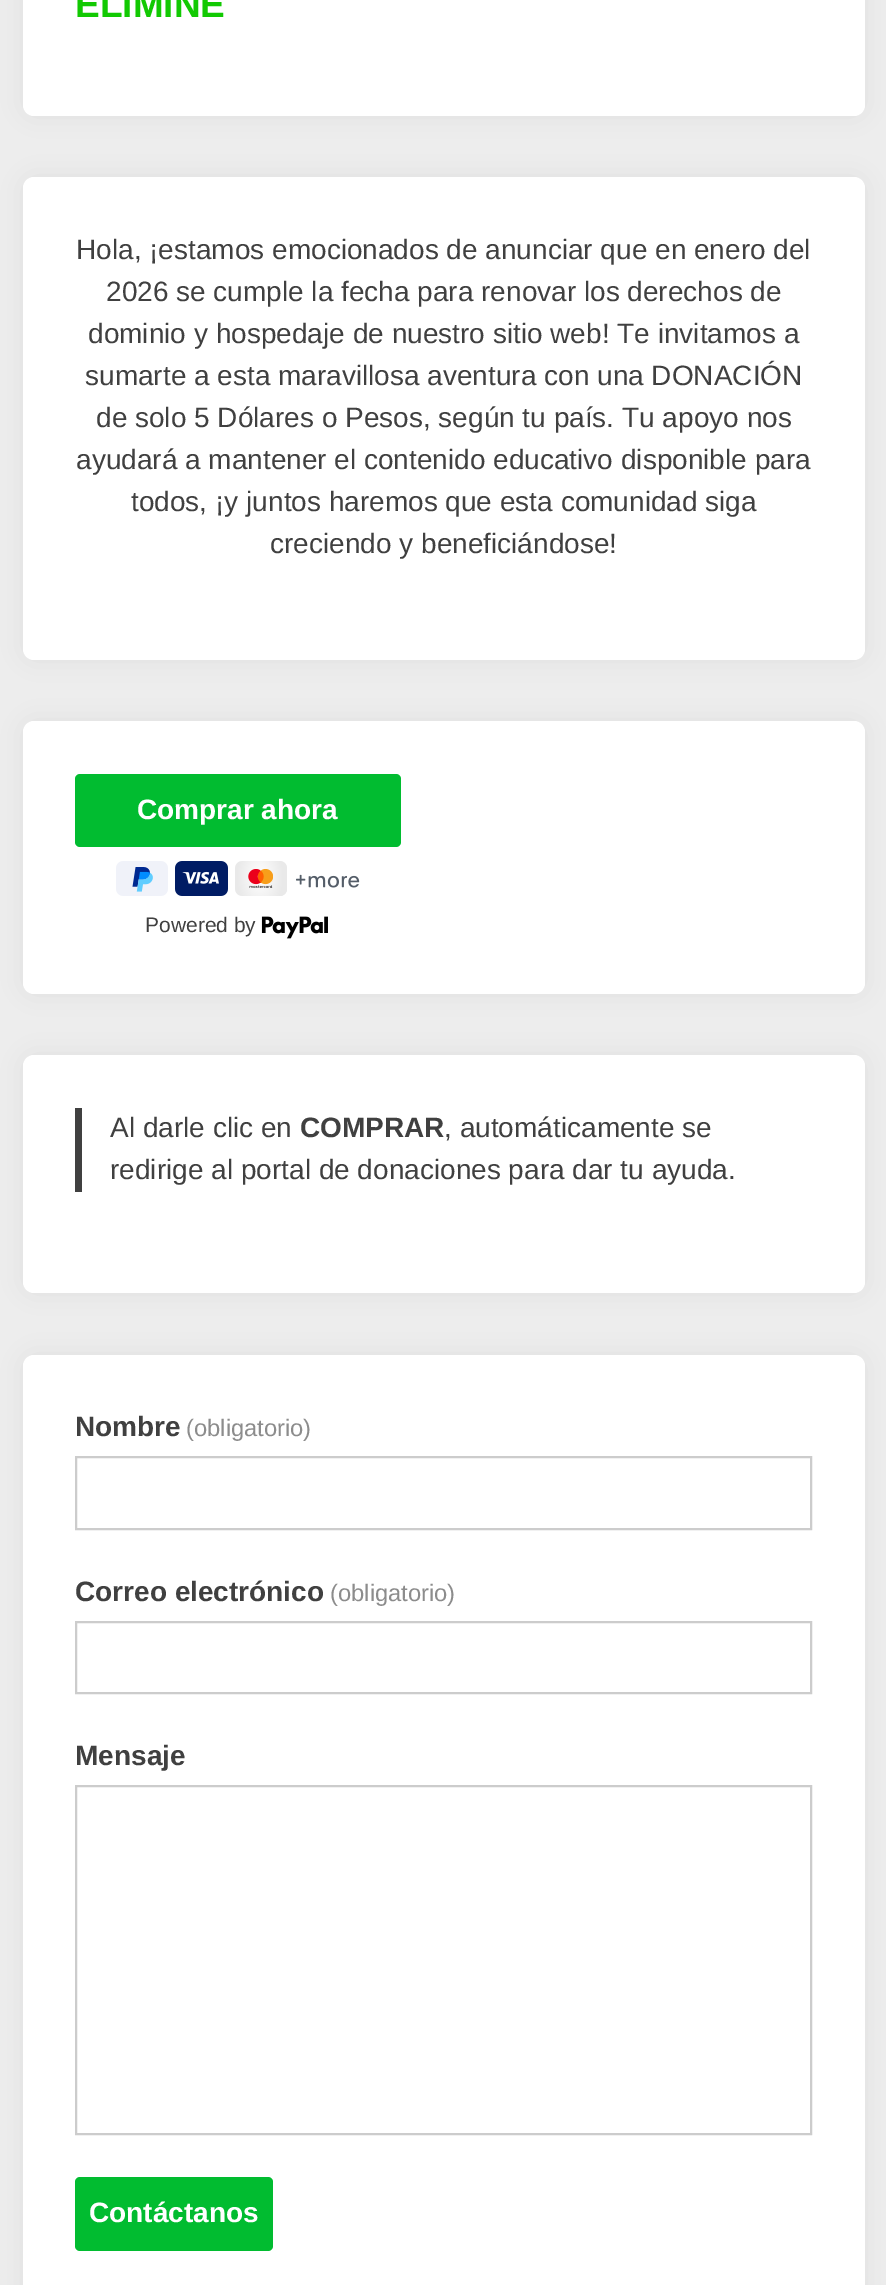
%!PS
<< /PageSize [886 2285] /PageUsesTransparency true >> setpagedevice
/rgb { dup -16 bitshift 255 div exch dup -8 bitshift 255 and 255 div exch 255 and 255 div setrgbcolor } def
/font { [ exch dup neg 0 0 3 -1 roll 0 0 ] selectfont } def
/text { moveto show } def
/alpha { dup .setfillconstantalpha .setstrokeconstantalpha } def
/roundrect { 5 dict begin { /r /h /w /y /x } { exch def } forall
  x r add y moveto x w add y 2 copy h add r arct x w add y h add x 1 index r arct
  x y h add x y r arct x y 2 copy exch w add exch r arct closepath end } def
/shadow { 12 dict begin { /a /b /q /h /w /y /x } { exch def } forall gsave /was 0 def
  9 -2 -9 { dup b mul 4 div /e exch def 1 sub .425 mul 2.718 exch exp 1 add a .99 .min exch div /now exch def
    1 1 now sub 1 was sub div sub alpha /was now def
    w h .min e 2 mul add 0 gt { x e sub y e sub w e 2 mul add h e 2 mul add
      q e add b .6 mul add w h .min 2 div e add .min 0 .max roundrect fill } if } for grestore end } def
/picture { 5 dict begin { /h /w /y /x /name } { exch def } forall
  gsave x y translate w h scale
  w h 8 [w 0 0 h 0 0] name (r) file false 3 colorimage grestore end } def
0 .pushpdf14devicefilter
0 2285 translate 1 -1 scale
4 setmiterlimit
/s1 { /LiberationSans-Bold 37 font 16#12C902 rgb } def
/s2 { /LiberationSans-Regular 28 font 16#404040 rgb } def
/s3 { /LiberationSans-Bold 28 font 16#FFFFFF rgb } def
/s4 { /LiberationSans-Regular 21 font 16#404040 rgb } def
/s5 { /LiberationSans-Bold 28 font 16#404040 rgb } def
/s6 { /LiberationSans-Regular 23.75 font 16#8C8C8C rgb } def
16#EDEDED rgb
0 0 886 2285 rectfill
16#000000 rgb
23 -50 842 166 11 13 0.06 shadow
16#FFFFFF rgb
23 -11 842 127 11 roundrect fill
s1
(ELIMINE) 75 17 text
16#000000 rgb
23 177 842 483 11 13 0.06 shadow
16#FFFFFF rgb
23 177 842 483 11 roundrect fill
s2
(Hola, ¡estamos emocionados de anunciar que en enero del) 76 259 text
(2026 se cumple la fecha para renovar los derechos de) 106 301 text
(dominio y hospedaje de nuestro sitio web! Te invitamos a) 88 343 text
(sumarte a esta maravillosa aventura con una DONACIÓN) 85 385 text
(de solo 5 Dólares o Pesos, según tu país. Tu apoyo nos) 96 427 text
(ayudará a mantener el contenido educativo disponible para) 76 469 text
(todos, ¡y juntos haremos que esta comunidad siga) 131 511 text
(creciendo y beneficiándose!) 270 553 text
16#000000 rgb
23 721 842 273 11 13 0.06 shadow
16#FFFFFF rgb
23 721 842 273 11 roundrect fill
16#01BC30 rgb
75 774 326 73 5 roundrect fill
s3
(Comprar ahora) 137 819 text
(pic1.raw) 116 861 244 35 picture
s4
(Powered by) 145 932 text
(pic2.raw) 261 916 67 23 picture
16#000000 rgb
23 1055 842 238 11 13 0.06 shadow
16#FFFFFF rgb
23 1055 842 238 11 roundrect fill
16#404040 rgb
75 1108 7 84 rectfill
s2
(Al darle clic en) 110 1137 text
s5
(COMPRAR) 300 1137 text
s2
(, automáticamente se) 444 1137 text
(redirige al portal de donaciones para dar tu ayuda.) 110 1179 text
16#000000 rgb
23 1355 842 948 11 13 0.06 shadow
16#FFFFFF rgb
23 1355 842 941 11 roundrect fill
s5
(Nombre) 75 1436 text
s6
(\(obligatorio\)) 186 1436 text
16#CCCCCC rgb
2 setlinewidth
76 1457 735 72 rectstroke
s5
(Correo electrónico) 75 1601 text
s6
(\(obligatorio\)) 330 1601 text
16#CCCCCC rgb
76 1622 735 71 rectstroke
s5
(Mensaje) 75 1765 text
16#CCCCCC rgb
76 1786 735 348 rectstroke
16#01BC30 rgb
75 2177 198 74 5 roundrect fill
s3
(Contáctanos) 89 2222 text
.poppdf14devicefilter showpage
